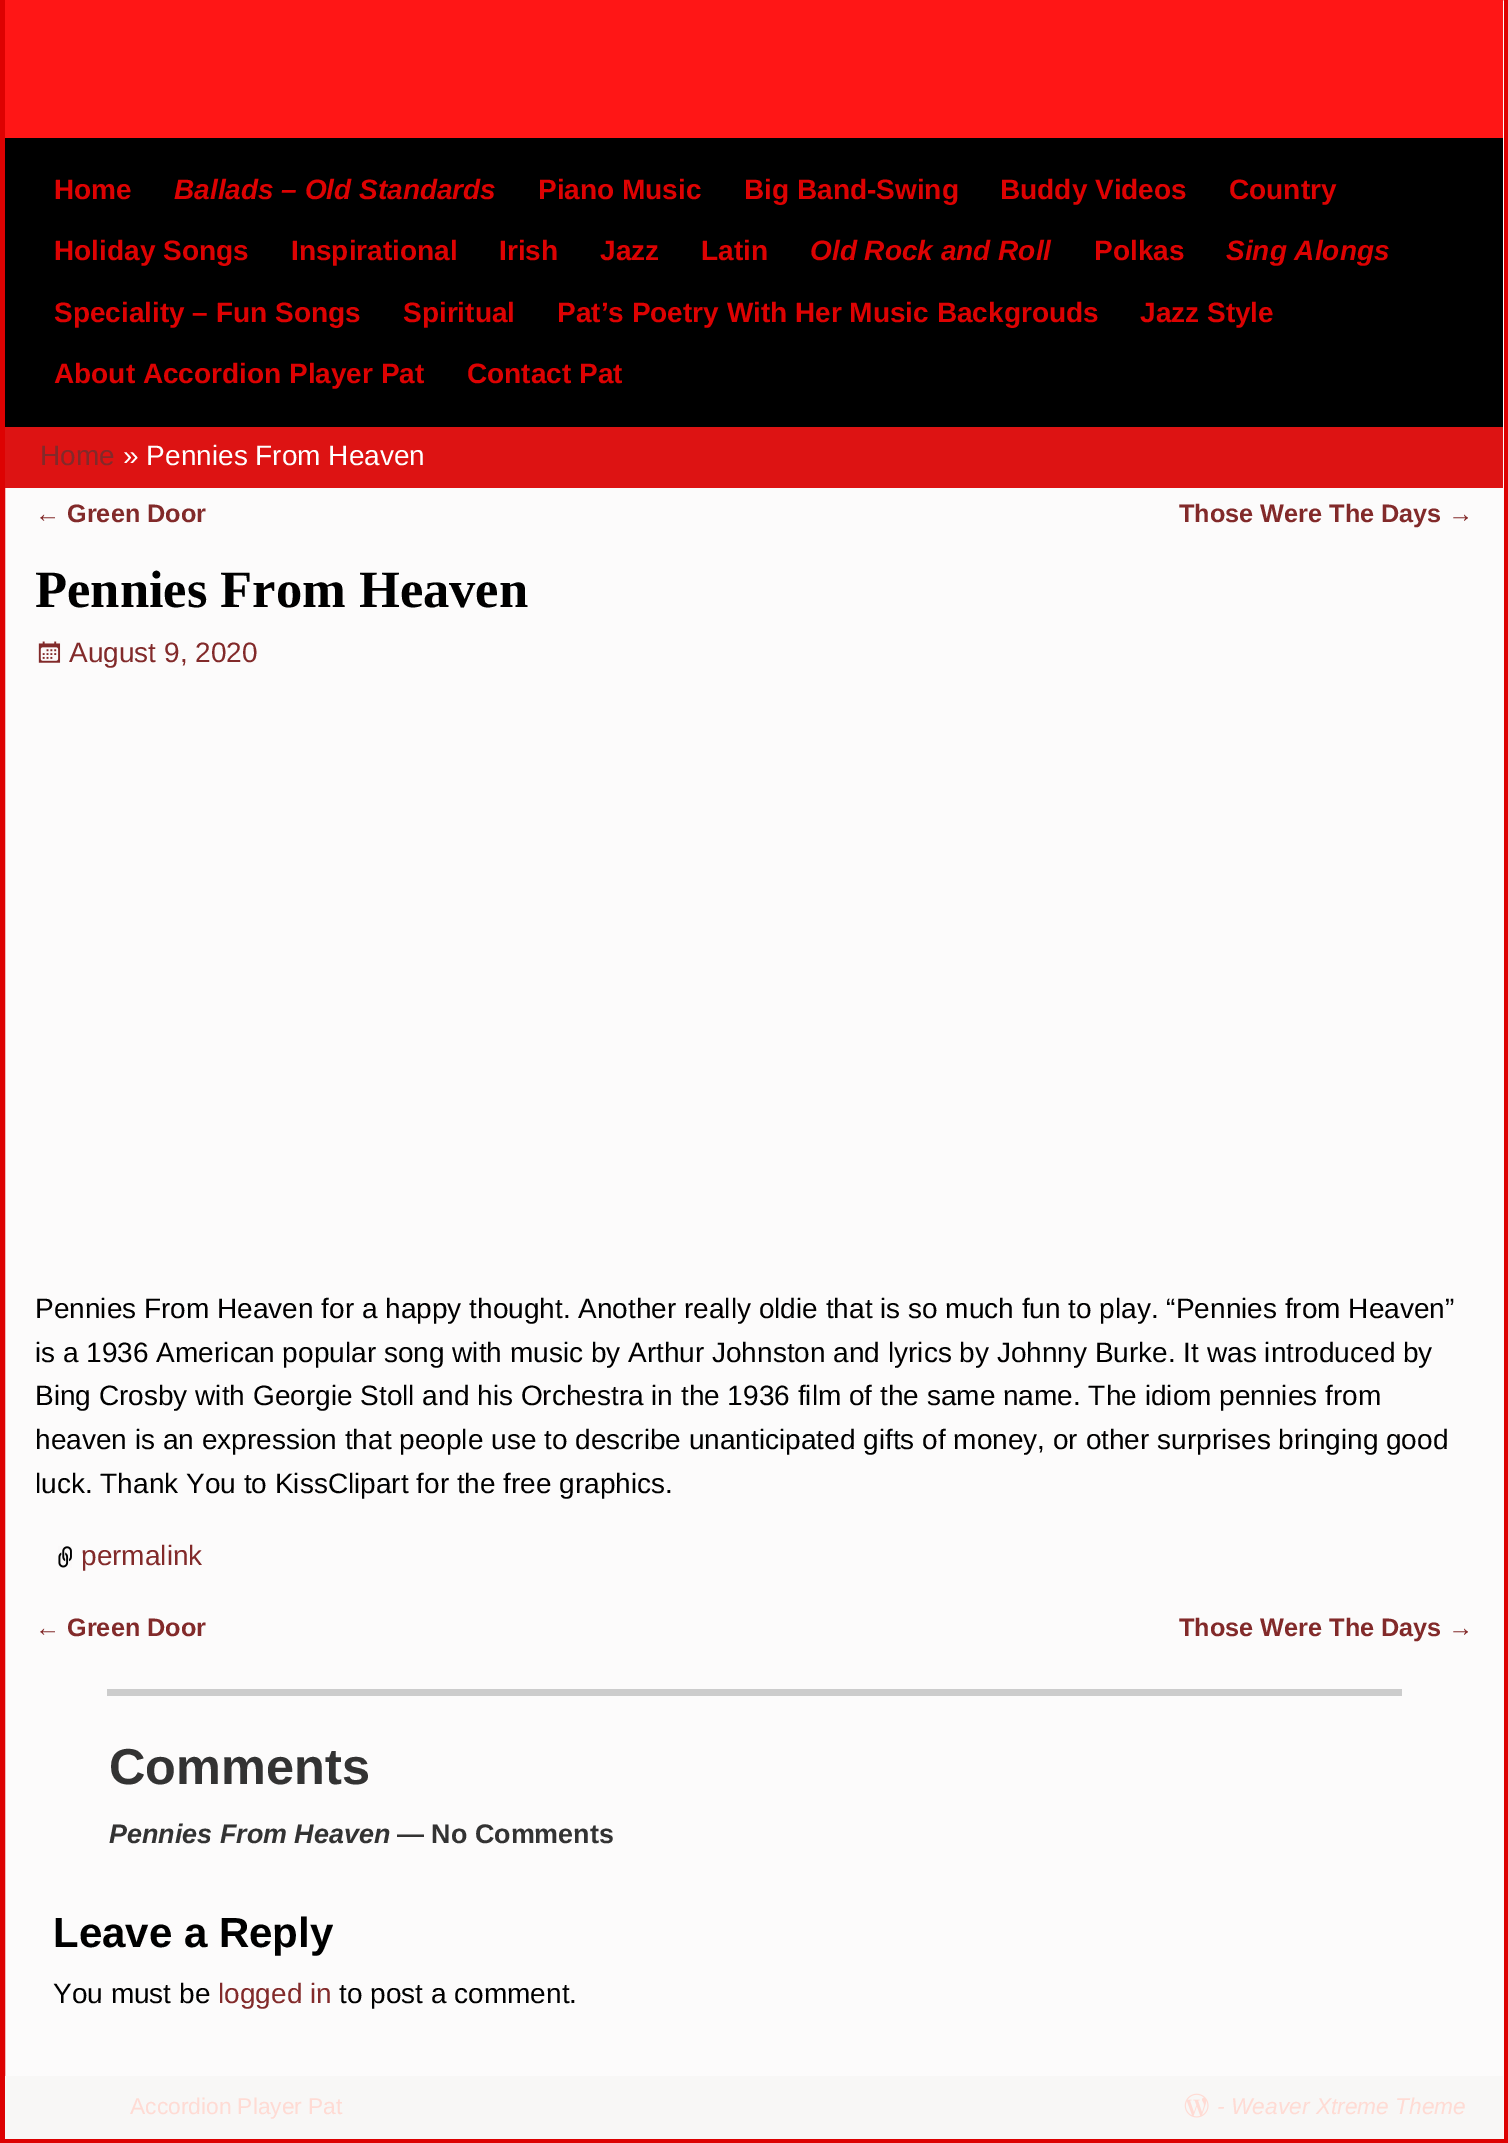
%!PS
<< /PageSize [1508 2143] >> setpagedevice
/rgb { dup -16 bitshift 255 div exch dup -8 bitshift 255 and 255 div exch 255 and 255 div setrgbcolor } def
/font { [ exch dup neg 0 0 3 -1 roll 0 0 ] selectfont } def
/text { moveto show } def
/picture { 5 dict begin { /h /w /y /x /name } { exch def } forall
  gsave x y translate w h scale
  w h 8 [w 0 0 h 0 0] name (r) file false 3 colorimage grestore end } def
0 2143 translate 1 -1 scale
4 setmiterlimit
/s1 { /LiberationSans-Bold 28 font 16#DD0202 rgb } def
/s2 { /LiberationSans-BoldItalic 28 font 16#DD0202 rgb } def
/s3 { /LiberationSans-Regular 28 font 16#822A2A rgb } def
/s4 { /LiberationSans-Regular 28 font 16#FFFFFF rgb } def
/s5 { /LiberationSans-Regular 25.25 font 16#822A2A rgb } def
/s6 { /LiberationSans-Bold 25.25 font 16#822A2A rgb } def
/s7 { /LiberationSerif-Bold 52.5 font 16#000000 rgb } def
/s8 { /LiberationSans-Regular 28 font 16#000000 rgb } def
/s9 { /LiberationSans-Bold 50.5 font 16#333333 rgb } def
/s10 { /LiberationSans-BoldItalic 26.9 font 16#333333 rgb } def
/s11 { /LiberationSans-Bold 26.9 font 16#333333 rgb } def
/s12 { /LiberationSans-Bold 42 font 16#000000 rgb } def
/s13 { /LiberationSans-Regular 22.75 font 16#FFDBD4 rgb } def
/s14 { /LiberationSans-Italic 22.75 font 16#FFDBD4 rgb } def
16#FCFBFB rgb
0 0 1508 2143 rectfill
16#DD0202 rgb
5 setlinewidth
2.5 -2.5 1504 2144 rectstroke
16#FF1616 rgb
5 0 1498 138 rectfill
16#000000 rgb
5 138 1498 289 rectfill
s1
(Home) 54 199 text
s2
(Ballads – Old Standards) 174 199 text
s1
(Piano Music) 538 199 text
(Big Band-Swing) 744 199 text
(Buddy Videos) 1000 199 text
(Country) 1229 199 text
(Holiday Songs) 54 260 text
(Inspirational) 291 260 text
(Irish) 499 260 text
(Jazz) 600 260 text
(Latin) 701 260 text
s2
(Old Rock and Roll) 810 260 text
s1
(Polkas) 1094 260 text
s2
(Sing Alongs) 1226 260 text
s1
(Speciality – Fun Songs) 54 322 text
(Spiritual) 403 322 text
(Pat’s Poetry With Her Music Backgrouds) 557 322 text
(Jazz Style) 1140 322 text
(About Accordion Player Pat) 54 383 text
(Contact Pat) 467 383 text
16#DD1313 rgb
5 427 1498 61 rectfill
s3
(Home) 40 465 text
s4
(» Pennies From Heaven) 123 465 text
s5
(←) 35 522 text
s6
(Green Door) 67 522 text
(Those Were The Days) 1179 522 text
s5
(→) 1448 522 text
s7
(Pennies From Heaven) 35 607 text
(pic1.raw) 38 641 23 22 picture
s3
(August 9, 2020) 69 662 text
s8
(Pennies From Heaven for a happy thought. Another really oldie that is so much fun to play. “Pennies from Heaven”) 35 1318 text
(is a 1936 American popular song with music by Arthur Johnston and lyrics by Johnny Burke. It was introduced by) 35 1362 text
(Bing Crosby with Georgie Stoll and his Orchestra in the 1936 film of the same name. The idiom pennies from) 35 1405 text
(heaven is an expression that people use to describe unanticipated gifts of money, or other surprises bringing good) 35 1449 text
(luck. Thank You to KissClipart for the free graphics.) 35 1493 text
(pic2.raw) 58 1546 14 22 picture
s3
(permalink) 81 1565 text
s5
(←) 35 1636 text
s6
(Green Door) 67 1636 text
(Those Were The Days) 1179 1636 text
s5
(→) 1448 1636 text
16#CCCCCC rgb
107 1689 1295 7 rectfill
s9
(Comments) 109 1784 text
s10
(Pennies From Heaven) 109 1843 text
s11
(— No Comments) 397 1843 text
s12
(Leave a Reply) 53 1947 text
s8
(You must be) 53 2003 text
s3
(logged in) 218 2003 text
s8
(to post a comment.) 339 2003 text
16#F8F7F6 rgb
5 2076 1498 63 rectfill
s13
(Accordion Player Pat) 130 2114 text
(pic3.raw) 1184 2093 25 25 picture
s14
(- Weaver Xtreme Theme) 1217 2114 text
showpage
